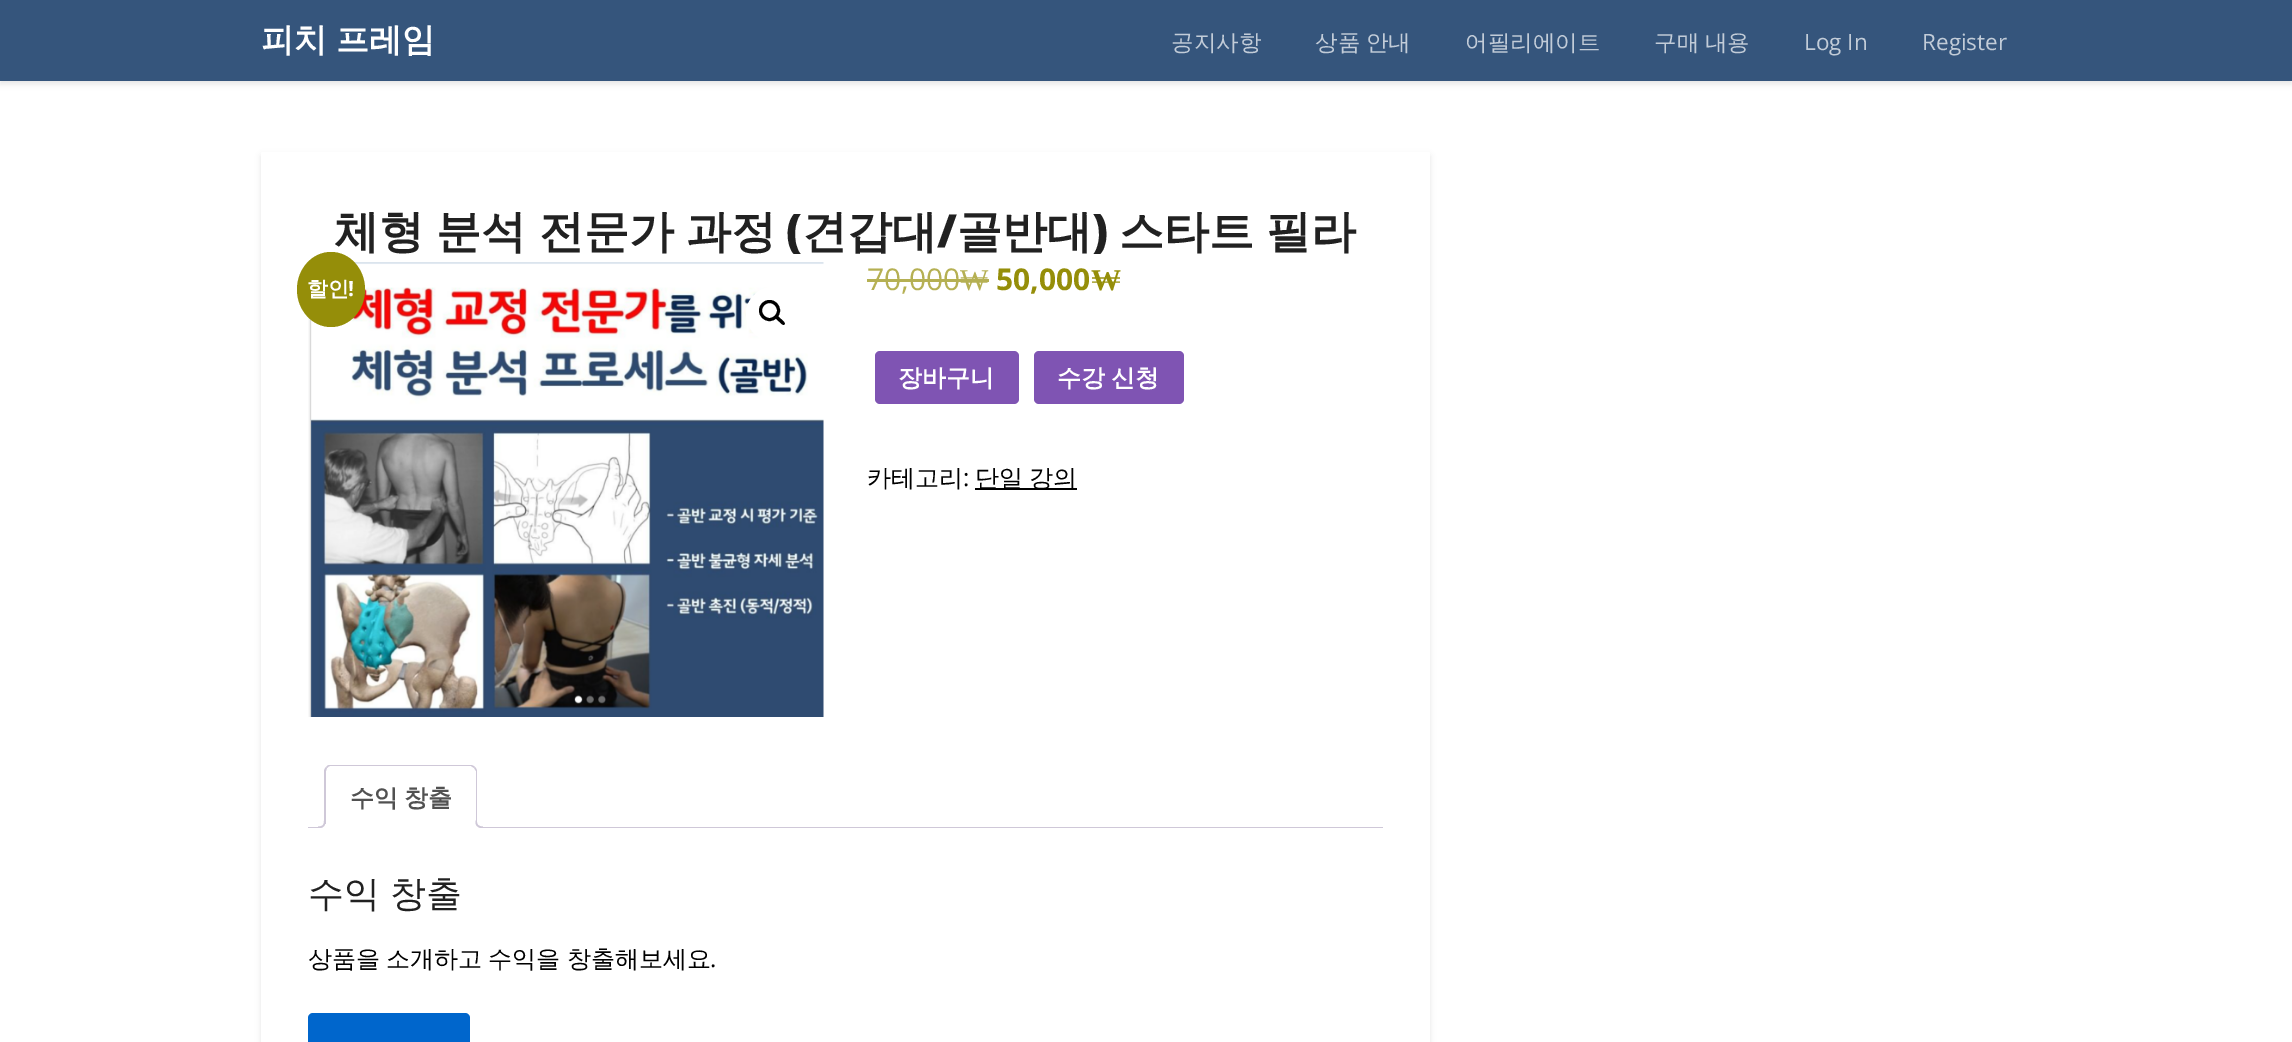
%!PS
<< /PageSize [2292 1042] /PageUsesTransparency true >> setpagedevice
/rgb { dup -16 bitshift 255 div exch dup -8 bitshift 255 and 255 div exch 255 and 255 div setrgbcolor } def
/font { [ exch dup neg 0 0 3 -1 roll 0 0 ] selectfont } def
/text { moveto show } def
/alpha { dup .setfillconstantalpha .setstrokeconstantalpha } def
/circle { newpath 0 360 arc closepath } def
/roundrect { 5 dict begin { /r /h /w /y /x } { exch def } forall
  x r add y moveto x w add y 2 copy h add r arct x w add y h add x 1 index r arct
  x y h add x y r arct x y 2 copy exch w add exch r arct closepath end } def
/shadow { 12 dict begin { /a /b /q /h /w /y /x } { exch def } forall gsave /was 0 def
  9 -2 -9 { dup b mul 4 div /e exch def 1 sub .425 mul 2.718 exch exp 1 add a .99 .min exch div /now exch def
    1 1 now sub 1 was sub div sub alpha /was now def
    w h .min e 2 mul add 0 gt { x e sub y e sub w e 2 mul add h e 2 mul add
      q e add b .6 mul add w h .min 2 div e add .min 0 .max roundrect fill } if } for grestore end } def
/picture { 5 dict begin { /h /w /y /x /name } { exch def } forall
  gsave x y translate w h scale
  w h 8 [w 0 0 h 0 0] name (r) file false 3 colorimage grestore end } def
0 .pushpdf14devicefilter
0 1042 translate 1 -1 scale
4 setmiterlimit
/s1 { /WenQuanYiZenHei-Medium 22.5 font 16#C2CCD8 rgb } def
/s2 { /OpenSans-Regular 22.5 font 16#C2CCD8 rgb } def
/s3 { /OpenSans-ExtraBold 45 font 16#212121 rgb } def
/s4 { /WenQuanYiZenHei-Bold 45 font 16#212121 rgb } def
/s5 { /OpenSans-Regular 30 font 16#B5B053 rgb } def
/s6 { /LiberationSerif-Regular 30 font 16#B5B053 rgb } def
/s7 { /OpenSans-Bold 30 font 16#958E09 rgb } def
/s8 { /LiberationSerif-Bold 30 font 16#958E09 rgb } def
/s9 { /WenQuanYiZenHei-Bold 24 font 16#FFFFFF rgb } def
/s10 { /WenQuanYiZenHei-Medium 24 font 16#000000 rgb } def
/s11 { /OpenSans-Regular 24 font 16#000000 rgb } def
/s12 { /WenQuanYiZenHei-Bold 21 font 16#FFFFFF rgb } def
/s13 { /OpenSans-Bold 21 font 16#FFFFFF rgb } def
16#FFFFFF rgb
0 0 2292 1042 rectfill
16#000000 rgb
0 3 2292 81 0 3 0.1 shadow
16#35557C rgb
0 0 2292 81 rectfill
/WenQuanYiZenHei-Bold 33 font
16#FFFFFF rgb
261 51 moveto -1 0 32 (피치 프레임) widthshow
s1
(공지사항) 1171 50 text
1315 50 moveto -1 0 32 (상품 안내) widthshow
(어필리에이트) 1465 50 text
1654 50 moveto -1 0 32 (구매 내용) widthshow
s2
(Log In) 1804 50 text
(Register) 1922 50 text
16#000000 rgb
261 155 1169 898 1.5 3 0.1 shadow
16#FFFFFF rgb
261 152 1169 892 1.5 roundrect fill
/WenQuanYiZenHei-Bold 45 font
16#212121 rgb
334 247 moveto -1 0 32 (체형 분석 전문가 과정) widthshow
s3
(\() 786 247 text
s4
(견갑대) 802 247 text
s3
(/) 937 247 text
s4
(골반대) 957 247 text
s3
(\)) 1092 247 text
/WenQuanYiZenHei-Bold 45 font
1119 247 moveto -1 0 32 (스타트 필라) widthshow
(pic1.raw) 308 262 516 455 picture
16#FFFFFF rgb
773 314 27 circle fill
16#000000 rgb
3 setlinewidth
769.5 310.5 9 circle stroke
776 316 moveto 777.5 314.5 780 318.5 781 319 curveto 782 320 786 323 784.5 324.5 curveto 782.5 326 780 322 779 321.5 curveto 778 320.5 774 317.5 776 316 curveto closepath fill
s5
(70,000) 867 290 text
s6
(₩) 960 290 text
867 279 93 3 rectfill
960 279 29 3 rectfill
s7
(50,000) 996 290 text
s8
(₩) 1091 290 text
16#7F54B3 rgb
875 351 144 53 5 roundrect fill
s9
(장바구니) 898 386 text
16#7F54B3 rgb
1034 351 150 53 5 roundrect fill
16#FFFFFF rgb
1057 386 moveto -1 0 32 (수강 신청) widthshow
s10
(카테고리) 867 486 text
s11
(:) 963 486 text
975 488 102 2 rectfill
/WenQuanYiZenHei-Medium 24 font
975 486 moveto -1 0 32 (단일 강의) widthshow
16#958E09 rgb
331 252 moveto 350 252 365 269 365 289.5 curveto 365 310 350 327 331 327 curveto 312 327 297 310 297 289.5 curveto 297 269 312 252 331 252 curveto closepath fill
s12
(할인) 307 296 text
s13
(!) 348 296 text
16#CFC8D8 rgb
308 827 1075 1 rectfill
16#FFFFFF rgb
330 765 moveto 471 765 lineto 474.5 765 477 767.5 477 771 curveto 477 828 lineto 324 828 lineto 324 771 lineto 324 767.5 326.5 765 330 765 curveto closepath fill
16#CFC8D8 rgb
330 765 moveto 328 765 327 766 326 767 curveto 327 768 lineto 328 767 329 766 330 766 curveto 471 766 lineto 474 768 lineto 475 767 lineto 474 766 472 765 471 765 curveto closepath fill
477 828 moveto 477 771 lineto 477 770 476 768 475 767 curveto 474 768 lineto 476 771 lineto 476 826 lineto 475 826 lineto closepath fill
16#FFFFFF rgb
477 828 moveto 475 826 lineto 326 826 lineto 324 828 lineto closepath fill
16#CFC8D8 rgb
324 828 moveto 326 826 lineto 326 771 lineto 327 768 lineto 326 767 lineto 325 768 324 770 324 771 curveto closepath fill
/WenQuanYiZenHei-Bold 24 font
16#515151 rgb
350 806 moveto -1 0 32 (수익 창출) widthshow
gsave
308 765 1075 63 rectclip
16#FFFFFF rgb
321 828 moveto 321 831 lineto 326 831 329 829.5 329 824 curveto 325 824 lineto 324.5 826 323 827.5 321 828 curveto closepath fill
grestore
16#CFC8D8 rgb
318 820.5 moveto 325.5 820.5 lineto 325.5 826 323.5 828 318 828 curveto closepath 318 820.5 moveto 324 820.5 lineto 324 825 322.5 826.5 318 826.5 curveto closepath eofill
gsave
308 765 1075 63 rectclip
16#FFFFFF rgb
473 824 moveto 473 828.5 475.5 831 480 831 curveto 480 828 lineto 478 827.5 476.5 826 476 824 curveto closepath fill
grestore
475.5 820.5 moveto 483 820.5 lineto 483 828 lineto 479 828 475.5 826.5 475.5 822 curveto closepath 477 820.5 moveto 483 820.5 lineto 483 826.5 lineto 480 826.5 477 825.5 477 822 curveto closepath eofill
/WenQuanYiZenHei-Medium 36 font
16#212121 rgb
308 906 moveto -1 0 32 (수익 창출) widthshow
/WenQuanYiZenHei-Medium 24 font
16#000000 rgb
308 967 moveto -1 0 32 (상품을 소개하고 수익을 창출해보세요) widthshow
s11
(.) 710 967 text
16#0066CC rgb
308 1013 162 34 5 roundrect fill
.poppdf14devicefilter showpage
